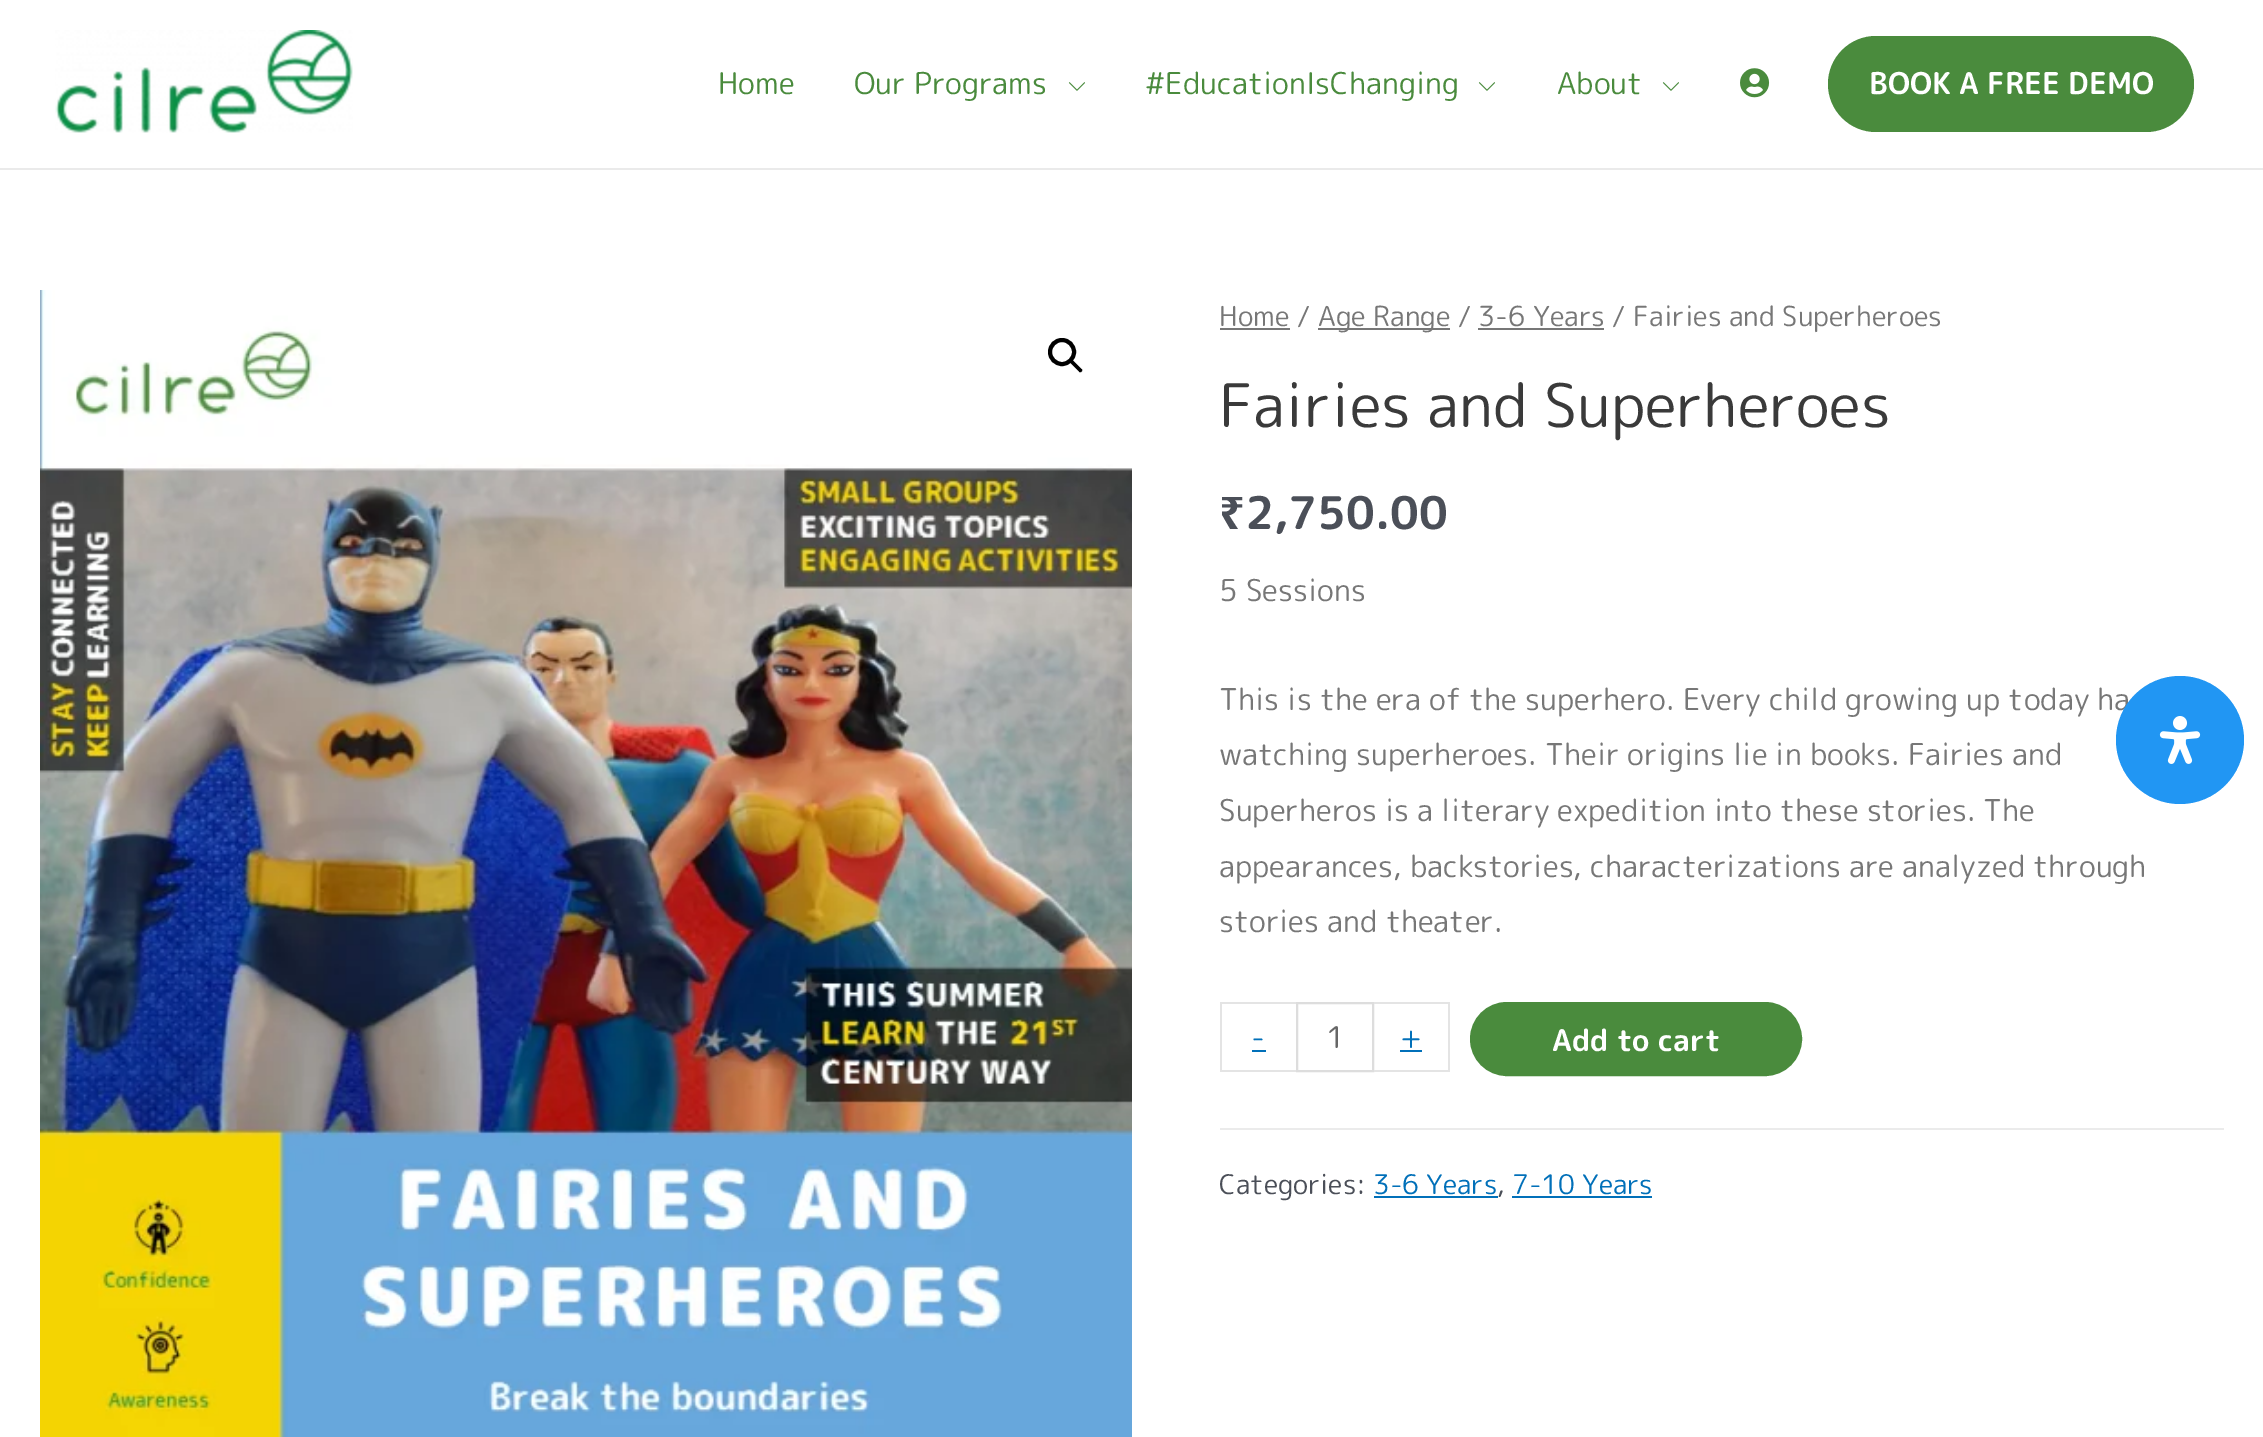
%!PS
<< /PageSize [2263 1437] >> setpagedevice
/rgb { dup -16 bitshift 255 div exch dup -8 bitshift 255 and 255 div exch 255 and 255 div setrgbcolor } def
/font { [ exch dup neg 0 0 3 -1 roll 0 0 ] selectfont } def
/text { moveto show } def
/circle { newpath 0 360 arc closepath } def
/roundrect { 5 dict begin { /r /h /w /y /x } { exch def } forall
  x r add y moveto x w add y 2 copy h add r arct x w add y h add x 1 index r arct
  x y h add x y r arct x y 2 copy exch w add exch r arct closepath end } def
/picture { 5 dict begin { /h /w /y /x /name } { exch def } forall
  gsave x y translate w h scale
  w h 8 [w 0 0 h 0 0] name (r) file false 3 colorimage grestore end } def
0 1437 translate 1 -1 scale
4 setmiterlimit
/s1 { /RoundedMplus1c-Regular 30 font 16#4A8B3D rgb } def
/s2 { /RoundedMplus1cBold-Bold 30 font 16#FFFFFF rgb } def
/s3 { /RoundedMplus1c-Regular 27.6 font 16#777777 rgb } def
/s4 { /RoundedMplus1c-Regular 60 font 16#3A3A3A rgb } def
/s5 { /NotoSans-Bold 45 font 16#4B4F58 rgb } def
/s6 { /RoundedMplus1cBold-Bold 45 font 16#4B4F58 rgb } def
/s7 { /RoundedMplus1c-Regular 30 font 16#777777 rgb } def
/s8 { /RoundedMplus1c-Regular 30 font 16#0170B9 rgb } def
/s9 { /RoundedMplus1c-Regular 30 font 16#666666 rgb } def
/s10 { /RoundedMplus1c-Regular 27 font 16#4B4F58 rgb } def
/s11 { /RoundedMplus1c-Regular 27 font 16#0170B9 rgb } def
16#FFFFFF rgb
0 0 2263 1437 rectfill
16#EAEAEA rgb
0 168 2263 2 rectfill
(pic1.raw) 55 30 298 103 picture
s1
(Home) 718 94 text
(Our Programs) 854 94 text
(pic2.raw) 1068 82 17 9 picture
(#EducationIsChanging) 1145 94 text
(pic2.raw) 1478 82 17 9 picture
(About) 1557 94 text
(pic2.raw) 1662 82 17 9 picture
(pic3.raw) 1740 68 30 30 picture
1828 36 366 96 48 roundrect fill
s2
(BOOK A FREE DEMO) 1869 94 text
(pic4.raw) 40 290 1092 1147 picture
16#000000 rgb
4 setlinewidth
1062 352 12 circle stroke
1070.5 360.5 moveto 1071 359.5 1072.5 359.5 1073 360.5 curveto 1081.5 369 lineto 1082.5 369.5 1082.5 371 1081.5 371.5 curveto 1081 372.5 1079.5 372.5 1079 371.5 curveto 1070.5 363 lineto 1069.5 362.5 1069.5 361 1070.5 360.5 curveto closepath fill
s3
(Home /) 1219 326 text
1220 328 70 2 rectfill
1318 328 132 2 rectfill
(Age Range / 3-6 Years / Fairies and Superheroes) 1318 326 text
1478 328 126 2 rectfill
s4
(Fairies and Superheroes) 1219 427 text
s5
(₹) 1219 529 text
s6
(2,750.00) 1245 529 text
s7
(5 Sessions) 1219 601 text
(This is the era of the superhero. Every child growing up today ha) 1219 710 text
(watching superheroes. Their origins lie in books. Fairies and) 1219 765 text
(Superheros is a literary expedition into these stories. The) 1219 821 text
(appearances, backstories, characterizations are analyzed through) 1219 877 text
(stories and theater.) 1219 932 text
16#E4E4E4 rgb
1220 1002 76 2 rectfill
1220 1070 76 2 rectfill
1220 1002 2 70 rectfill
s8
(-) 1251 1048 text
1252 1050 14 2 rectfill
16#DDDDDD rgb
2 setlinewidth
1297 1003 76 68 rectstroke
s9
(1) 1326 1048 text
16#E4E4E4 rgb
1374 1002 76 2 rectfill
1448 1002 2 70 rectfill
1374 1070 76 2 rectfill
s8
(+) 1400 1048 text
1400 1050 22 2 rectfill
16#4A8B3D rgb
1471 1003 330 72 36 roundrect gsave fill grestore
stroke
s2
(Add to cart) 1552 1051 text
16#EBEBEB rgb
1220 1128 1004 2 rectfill
s10
(Categories:) 1219 1194 text
s11
(3-6 Years) 1373 1194 text
1374 1196 124 2 rectfill
s10
(,) 1497 1194 text
s11
(7-10 Years) 1512 1194 text
1512 1196 140 2 rectfill
16#2196F3 rgb
2180 740 64 circle fill
(pic5.raw) 2159 716 42 48 picture
showpage
